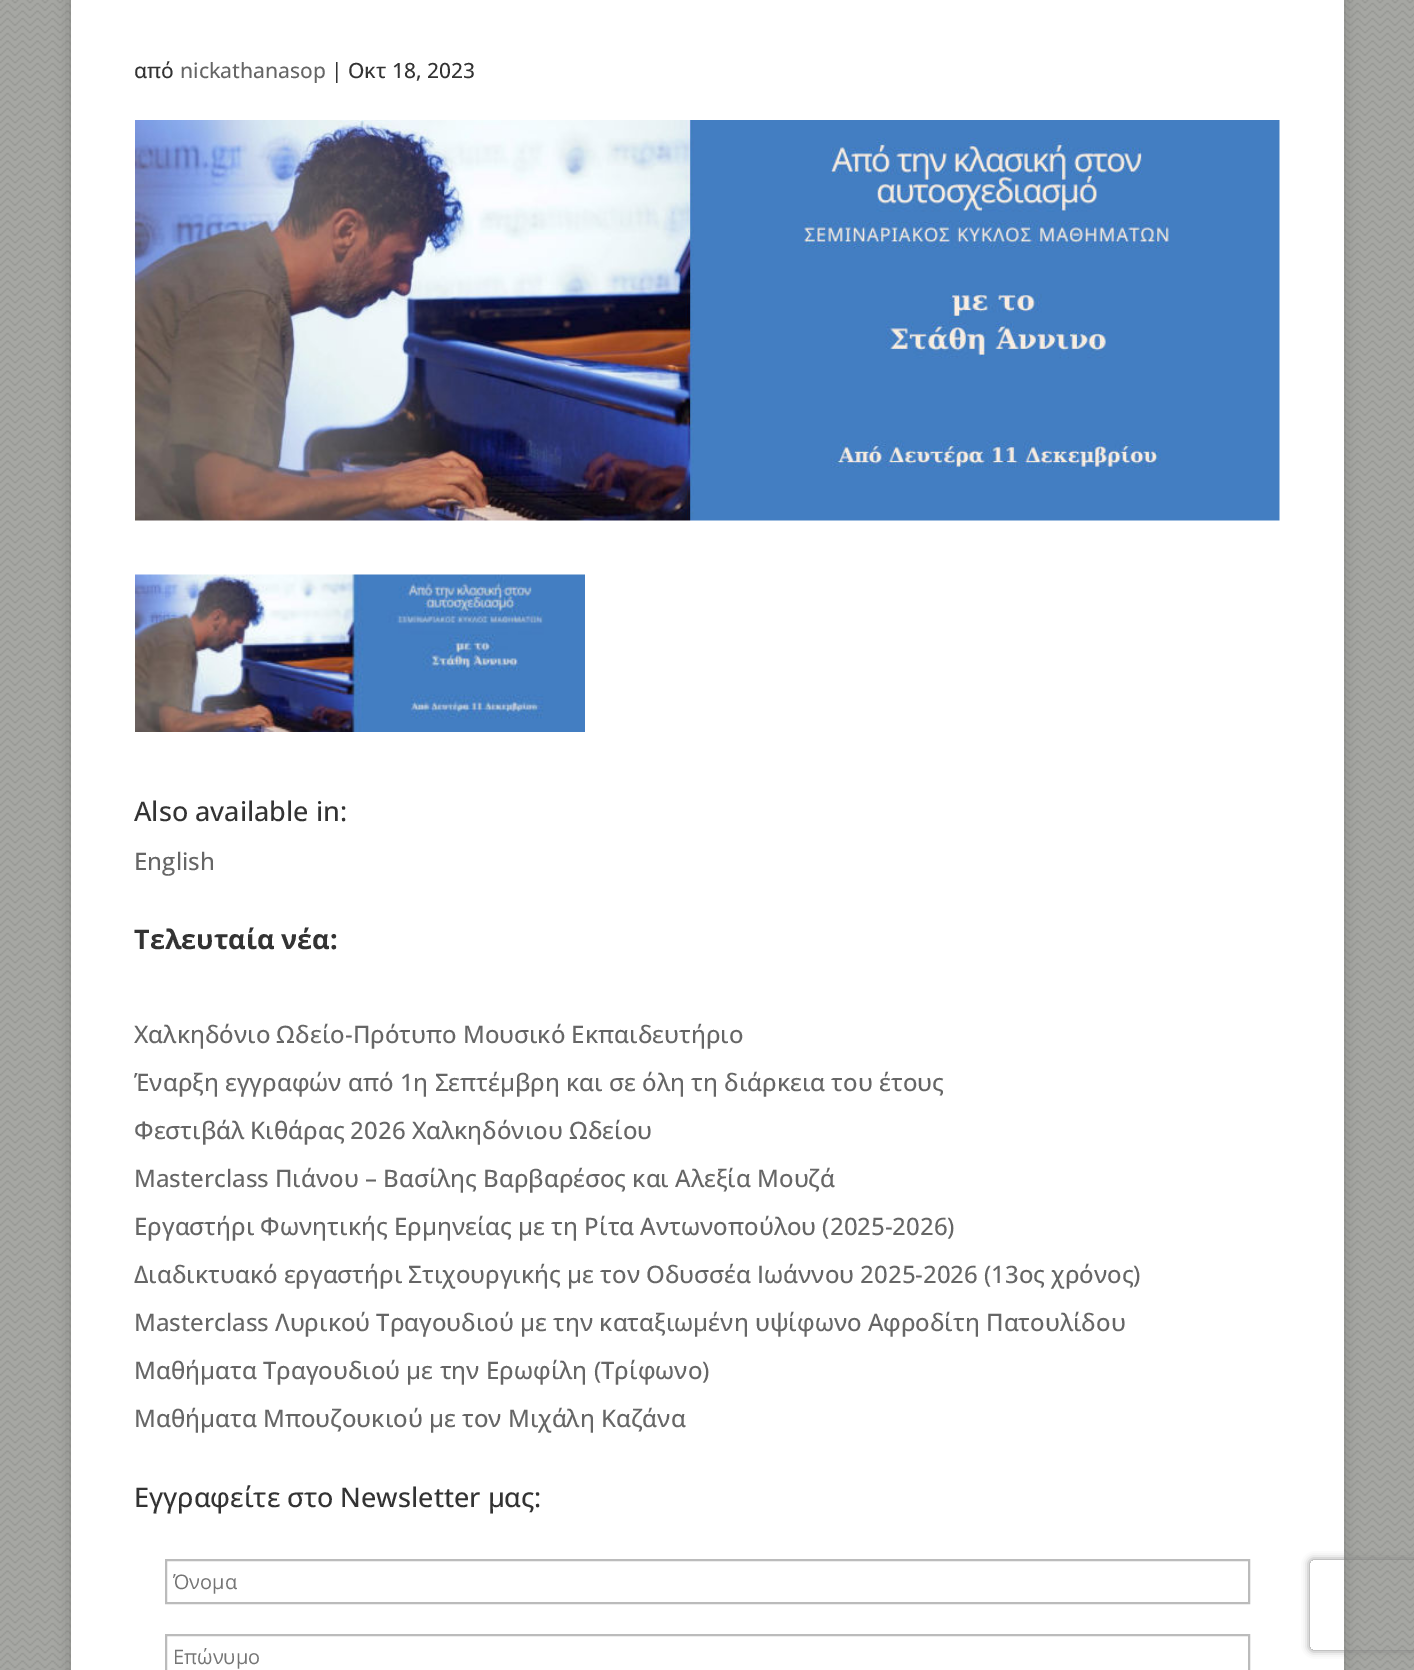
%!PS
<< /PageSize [1414 1670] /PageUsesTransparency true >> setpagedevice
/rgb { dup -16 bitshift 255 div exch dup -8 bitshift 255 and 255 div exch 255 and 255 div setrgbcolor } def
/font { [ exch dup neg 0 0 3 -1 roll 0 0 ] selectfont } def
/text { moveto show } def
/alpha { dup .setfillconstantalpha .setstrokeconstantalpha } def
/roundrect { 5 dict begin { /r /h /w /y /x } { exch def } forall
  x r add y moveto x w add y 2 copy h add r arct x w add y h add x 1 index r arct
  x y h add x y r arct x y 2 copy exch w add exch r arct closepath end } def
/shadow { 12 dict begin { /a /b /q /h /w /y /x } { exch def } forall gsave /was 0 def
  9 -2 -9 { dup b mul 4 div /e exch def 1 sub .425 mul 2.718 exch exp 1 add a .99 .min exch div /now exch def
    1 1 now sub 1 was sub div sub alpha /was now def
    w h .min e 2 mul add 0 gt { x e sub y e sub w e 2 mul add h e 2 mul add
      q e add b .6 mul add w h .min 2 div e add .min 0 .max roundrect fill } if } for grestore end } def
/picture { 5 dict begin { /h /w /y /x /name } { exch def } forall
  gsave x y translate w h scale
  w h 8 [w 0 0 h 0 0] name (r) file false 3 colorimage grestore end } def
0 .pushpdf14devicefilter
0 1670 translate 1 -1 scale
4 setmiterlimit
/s1 { /OpenSans-Medium 21 font 16#333333 rgb } def
/s2 { /OpenSans-Medium 21 font 16#666666 rgb } def
/s3 { /OpenSans-Medium 27 font 16#333333 rgb } def
/s4 { /OpenSans-Medium 24 font 16#666666 rgb } def
/s5 { /OpenSans-Bold 27 font 16#333333 rgb } def
/s6 { /OpenSans-Regular 20 font 16#757575 rgb } def
16#FFFFFF rgb
0 0 1414 1670 rectfill
(pic1.raw) 0 0 1414 1670 picture
16#000000 rgb
71 -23 1273 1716 0 7.5 0.2 shadow
16#FFFFFF rgb
71 0 1273 1670 rectfill
s1
(από) 134 78 text
s2
(nickathanasop) 180 78 text
s1
(| Οκτ 18, 2023) 331 78 text
(pic2.raw) 135 120 1145 401 picture
(pic3.raw) 135 574 450 158 picture
s3
(Also available in:) 134 821 text
s4
(English) 134 870 text
s5
(Τελευταία νέα:) 134 949 text
s4
(Χαλκηδόνιο Ωδείο-Πρότυπο Μουσικό Εκπαιδευτήριο) 134 1043 text
(Έναρξη εγγραφών από 1η Σεπτέμβρη και σε όλη τη διάρκεια του έτους) 134 1091 text
(Φεστιβάλ Κιθάρας 2026 Χαλκηδόνιου Ωδείου) 134 1139 text
(Μasterclass Πιάνου – Βασίλης Βαρβαρέσος και Αλεξία Μουζά) 134 1187 text
(Εργαστήρι Φωνητικής Ερμηνείας με τη Ρίτα Αντωνοπούλου \(2025-2026\)) 134 1235 text
(Διαδικτυακό εργαστήρι Στιχουργικής με τον Οδυσσέα Ιωάννου 2025-2026 \(13ος χρόνος\)) 134 1283 text
(Masterclass Λυρικού Τραγουδιού με την καταξιωμένη υψίφωνο Αφροδίτη Πατουλίδου) 134 1331 text
(Μαθήματα Τραγουδιού με την Ερωφίλη \(Τρίφωνο\)) 134 1379 text
(Μαθήματα Μπουζουκιού με τον Μιχάλη Καζάνα) 134 1427 text
s3
(Εγγραφείτε στο Newsletter μας:) 134 1507 text
16#BBBBBB rgb
2 setlinewidth
166 1560 1083 43 rectstroke
s6
(Όνομα) 173 1589 text
16#BBBBBB rgb
166 1635 1083 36 rectstroke
s6
(Επώνυμο) 173 1664 text
gsave
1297 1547 moveto 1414 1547 lineto 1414 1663 lineto 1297 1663 lineto closepath 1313 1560 moveto 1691 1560 lineto 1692.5 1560 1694 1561.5 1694 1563 curveto 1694 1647 lineto 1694 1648.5 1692.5 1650 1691 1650 curveto 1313 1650 lineto 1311.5 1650 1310 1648.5 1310 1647 curveto 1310 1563 lineto 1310 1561.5 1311.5 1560 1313 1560 curveto closepath eoclip newpath
16#808080 rgb
1310 1560 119 90 3 4 1 shadow
grestore
.poppdf14devicefilter showpage
